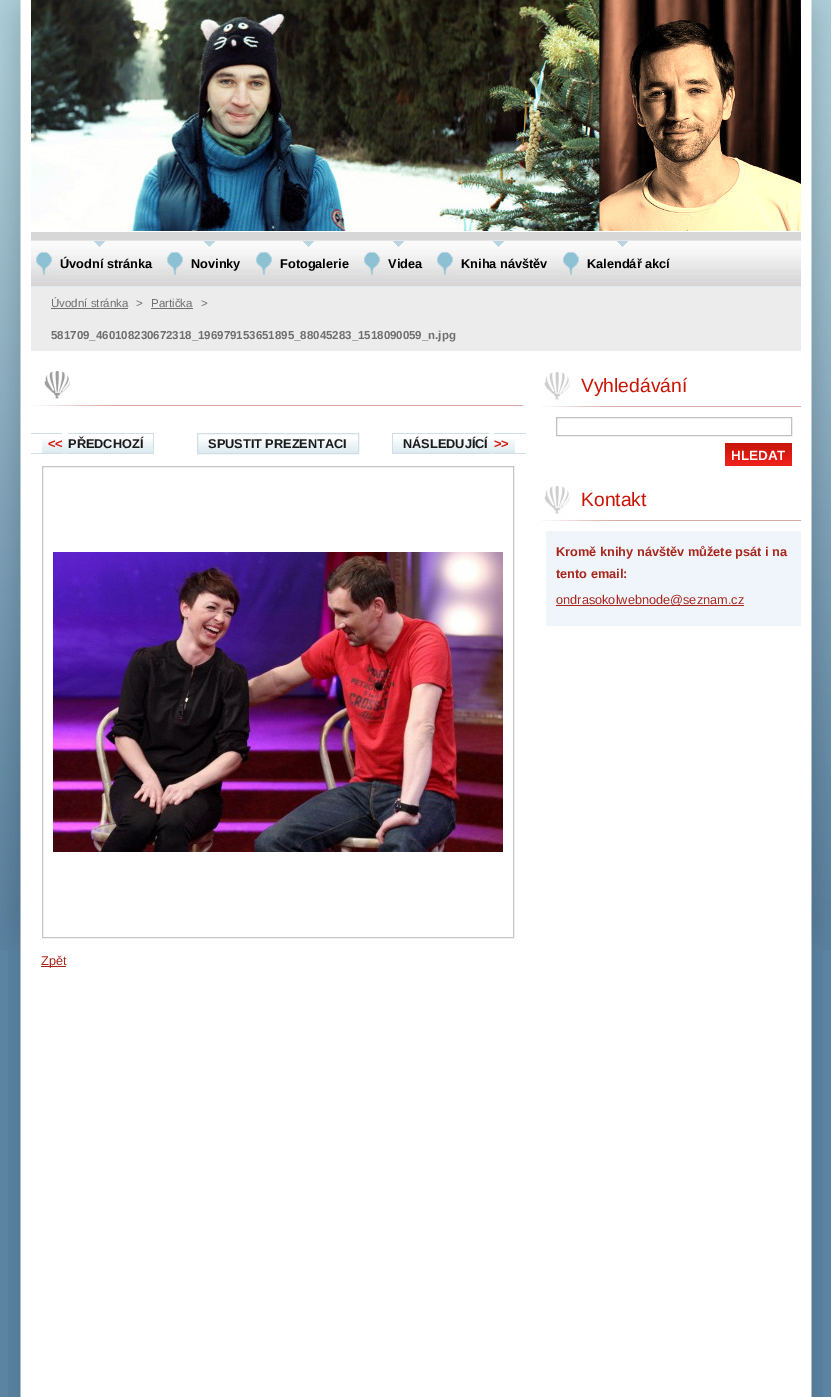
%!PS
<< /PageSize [831 1397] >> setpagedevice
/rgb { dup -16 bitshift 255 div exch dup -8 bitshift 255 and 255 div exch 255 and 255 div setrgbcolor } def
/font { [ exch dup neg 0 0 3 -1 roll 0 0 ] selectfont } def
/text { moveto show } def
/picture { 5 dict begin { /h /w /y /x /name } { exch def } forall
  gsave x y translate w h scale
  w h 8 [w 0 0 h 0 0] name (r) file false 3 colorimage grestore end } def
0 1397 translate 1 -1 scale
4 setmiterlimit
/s1 { /LiberationSans-Bold 12.75 font 16#000000 rgb } def
/s2 { /LiberationSans-Regular 11.5 font 16#6F6F6F rgb } def
/s3 { /LiberationSans-Bold 11.5 font 16#6F6F6F rgb } def
/s4 { /LiberationSans-Bold 12.75 font 16#D3180D rgb } def
/s5 { /LiberationSans-Bold 12.75 font 16#1B1B1B rgb } def
/s6 { /LiberationSans-Regular 12.75 font 16#A9261A rgb } def
/s7 { /LiberationSans-Regular 19.25 font 16#C81506 rgb } def
/s8 { /LiberationSans-Bold 13.5 font 16#FFFFFF rgb } def
/s9 { /LiberationSans-Bold 12.75 font 16#A9261A rgb } def
16#5B83A2 rgb
0 0 831 1397 rectfill
(pic1.raw) 8 950 815 447 picture
(pic2.raw) 0 0 831 950 picture
16#D7D7D7 rgb
31 232 770 8 rectfill
(pic3.raw) 31 0 770 231 picture
(pic4.raw) 31 241 770 45 picture
16#E5E5E5 rgb
31 240 770 1 rectfill
16#DDEAF3 rgb
31 286 770 1 rectfill
(pic5.raw) 36 252 16 23 picture
(pic6.raw) 94 241 11 6 picture
s1
(Úvodní stránka) 60 268 text
(pic5.raw) 167 252 16 23 picture
(pic6.raw) 204 241 11 6 picture
(Novinky) 191 268 text
(pic5.raw) 256 252 16 23 picture
(pic6.raw) 303 241 11 6 picture
(Fotogalerie) 280 268 text
(pic5.raw) 364 252 16 23 picture
(pic6.raw) 393 241 11 6 picture
(Videa) 388 268 text
(pic5.raw) 437 252 16 23 picture
(pic6.raw) 493 241 11 6 picture
(Kniha návštěv) 461 268 text
(pic5.raw) 563 252 16 23 picture
(pic6.raw) 617 241 11 6 picture
(Kalendář akcí) 587 268 text
16#ECECEC rgb
31 287 770 64 rectfill
s2
(Úvodní stránka) 51 307 text
51 308 77 1 rectfill
(>) 136 307 text
(Partička) 151 307 text
151 308 42 1 rectfill
(>) 201 307 text
s3
(581709_460108230672318_196979153651895_88045283_1518090059_n.jpg) 51 339 text
(pic7.raw) 31 371 495 35 picture
(pic8.raw) 42 439 111 15 picture
16#CFDFE6 rgb
31 433 31 1 rectfill
31 453 31 1 rectfill
68 433 86 1 rectfill
153 433 1 21 rectfill
68 453 86 1 rectfill
s4
(<<) 48 448 text
s5
(PŘEDCHOZÍ) 68 448 text
(pic9.raw) 198 439 160 14 picture
16#CFDFE6 rgb
197.5 433.5 161 20 rectstroke
s5
(SPUSTIT PREZENTACI) 208 448 text
(pic10.raw) 393 439 122 15 picture
16#CFDFE6 rgb
392 433 97 1 rectfill
392 453 97 1 rectfill
392 433 1 21 rectfill
494 433 32 1 rectfill
494 453 32 1 rectfill
s5
(NÁSLEDUJÍCÍ) 403 448 text
s4
(>>) 494 448 text
16#C6C6C6 rgb
42.5 466.5 471 471 rectstroke
(pic11.raw) 53 552 450 300 picture
16#A9261A rgb
41 966 25 1 rectfill
s6
(Zpět) 41 965 text
(pic12.raw) 541 372 260 35 picture
s7
(Vyhledávání) 581 392 text
16#C1C1C1 rgb
556.5 417.5 235 18 rectstroke
(pic13.raw) 725 443 67 23 picture
s8
(HLEDAT) 731 460 text
(pic12.raw) 541 486 260 35 picture
s7
(Kontakt) 581 506 text
16#F0F4FB rgb
546 531 255 95 rectfill
s9
(Kromě knihy návštěv můžete psát i na) 556 556 text
(tento email:) 556 578 text
556 605 188 1 rectfill
s6
(ondrasokolwebnode@seznam.cz) 556 604 text
showpage
